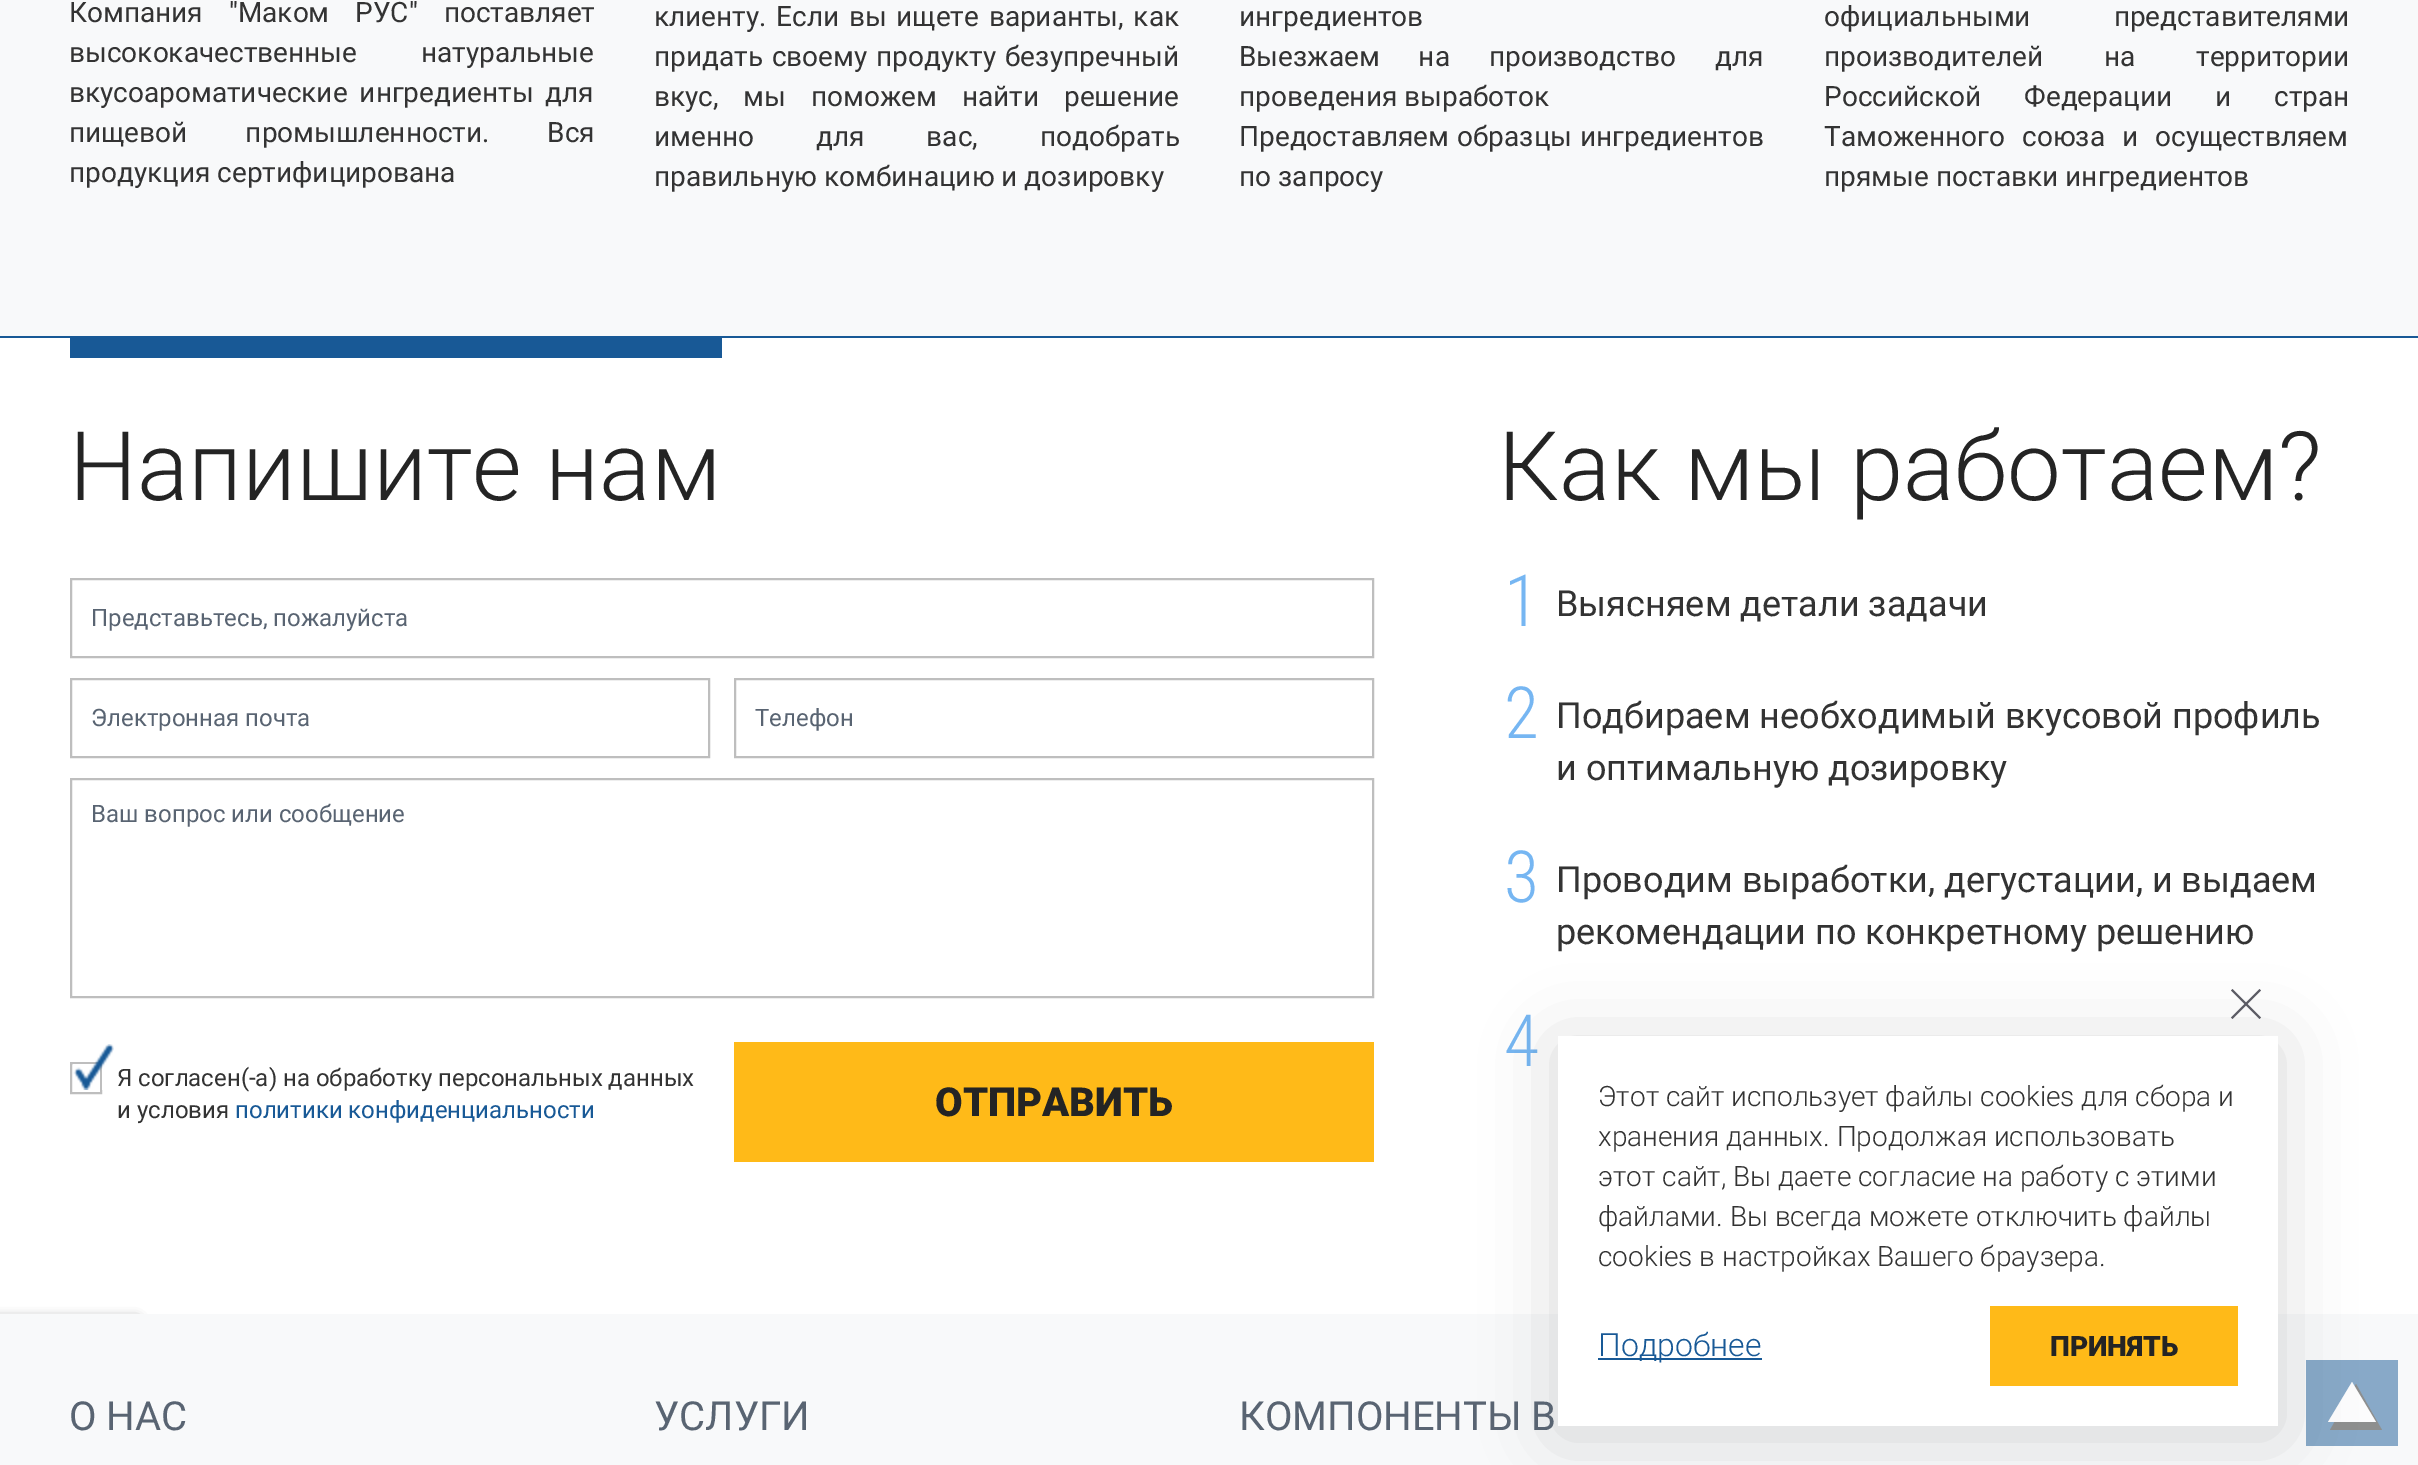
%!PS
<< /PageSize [2418 1465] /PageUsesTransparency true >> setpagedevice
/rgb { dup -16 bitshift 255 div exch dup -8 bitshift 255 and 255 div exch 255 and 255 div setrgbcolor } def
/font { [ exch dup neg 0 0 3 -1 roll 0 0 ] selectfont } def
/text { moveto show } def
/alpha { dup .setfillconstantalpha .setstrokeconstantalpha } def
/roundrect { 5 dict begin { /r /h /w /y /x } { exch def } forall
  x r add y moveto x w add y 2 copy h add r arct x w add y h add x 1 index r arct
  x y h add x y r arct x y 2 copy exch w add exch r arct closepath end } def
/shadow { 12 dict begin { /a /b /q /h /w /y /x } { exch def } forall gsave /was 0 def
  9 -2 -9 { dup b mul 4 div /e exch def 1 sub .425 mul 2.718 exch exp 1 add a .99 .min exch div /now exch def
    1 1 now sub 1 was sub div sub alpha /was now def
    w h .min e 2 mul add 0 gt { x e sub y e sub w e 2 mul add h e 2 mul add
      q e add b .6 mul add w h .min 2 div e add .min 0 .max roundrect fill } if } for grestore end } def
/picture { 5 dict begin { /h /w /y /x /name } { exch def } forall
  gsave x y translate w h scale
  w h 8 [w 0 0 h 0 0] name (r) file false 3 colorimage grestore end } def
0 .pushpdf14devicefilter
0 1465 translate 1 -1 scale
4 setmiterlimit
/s1 { /Roboto-Regular 28 font 16#333333 rgb } def
/s2 { /Roboto-Light 96 font 16#242424 rgb } def
/s3 { /Roboto-Regular 24 font 16#596472 rgb } def
/s4 { /Roboto-Regular 24 font 16#333333 rgb } def
/s5 { /Roboto-Regular 24 font 16#185996 rgb } def
/s6 { /Roboto-Black 40 font 16#242424 rgb } def
/s7 { /RobotoCondensed-Light 72 font 16#76B6F2 rgb } def
/s8 { /Roboto-Regular 36 font 16#333333 rgb } def
/s9 { /Roboto-Light 28 font 16#333333 rgb } def
/s10 { /Roboto-Light 32 font 16#185996 rgb } def
/s11 { /Roboto-Black 28 font 16#242424 rgb } def
/s12 { /Roboto-Regular 40 font 16#596472 rgb } def
16#FFFFFF rgb
0 0 2418 1465 rectfill
16#F8F9FA rgb
0 0 2418 336 rectfill
/Roboto-Regular 28 font
16#333333 rgb
69 22 moveto 19 0 32 (Компания "Маком РУС" поставляет) widthshow
69 62 moveto 57 0 32 (высококачественные натуральные) widthshow
69 102 moveto 5 0 32 (вкусоароматические ингредиенты для) widthshow
69 142 moveto 51 0 32 (пищевой промышленности. Вся) widthshow
(продукция сертифицирована) 69 182 text
654 26 moveto 2.75 0 32 (клиенту. Если вы ищете варианты, как) widthshow
654 66 moveto 2 0 32 (придать своему продукту безупречный) widthshow
654 106 moveto 18 0 32 (вкус, мы поможем найти решение) widthshow
654 146 moveto 55 0 32 (именно для вас, подобрать) widthshow
(правильную комбинацию и дозировку) 654 186 text
(ингредиентов) 1239 26 text
1239 66 moveto 32 0 32 (Выезжаем на производство для) widthshow
(проведения выработок) 1239 106 text
1239 146 moveto 1 0 32 (Предоставляем образцы ингредиентов) widthshow
(по запросу) 1239 186 text
1824 26 moveto 76 0 32 (официальными представителями) widthshow
1824 66 moveto 54 0 32 (производителей на территории) widthshow
1824 106 moveto 36 0 32 (Российской Федерации и стран) widthshow
1824 146 moveto 10 0 32 (Таможенного союза и осуществляем) widthshow
(прямые поставки ингредиентов) 1824 186 text
16#185996 rgb
0 336 2418 2 rectfill
70 338 652 20 rectfill
s2
(Напишите нам) 69 500 text
16#BEBEBE rgb
2 setlinewidth
71 579 1302 78 rectstroke
s3
(Представьтесь, пожалуйста) 91 626 text
16#BEBEBE rgb
71 679 638 78 rectstroke
s3
(Электронная почта) 91 726 text
16#BEBEBE rgb
735 679 638 78 rectstroke
s3
(Телефон) 755 726 text
16#BEBEBE rgb
71 779 1302 218 rectstroke
s3
(Ваш вопрос или сообщение) 91 822 text
16#BEBEBE rgb
71 1063 30 30 rectstroke
(pic1.raw) 73 1044 41 46 picture
s4
(Я согласен\(-а\) на обработку персональных данных) 117 1086 text
(и условия) 117 1118 text
s5
(политики конфиденциальности) 235 1118 text
16#FFBA18 rgb
734 1042 640 120 rectfill
s6
(ОТПРАВИТЬ) 935 1116 text
16#808080 rgb
-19 1318 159 120 4 5 1 shadow
s2
(Как мы работаем?) 1498 500 text
s7
(1) 1504 626 text
s8
(Выясняем детали задачи) 1556 616 text
s7
(2) 1504 738 text
s8
(Подбираем необходимый вкусовой профиль) 1556 728 text
(и оптимальную дозировку) 1556 780 text
s7
(3) 1504 902 text
s8
(Проводим выработки, дегустации, и выдаем) 1556 892 text
(рекомендации по конкретному решению) 1556 944 text
s7
(4) 1504 1066 text
16#F8F9FA rgb
0 1314 2418 151 rectfill
16#88A9C8 rgb
2306 1360 92 86 rectfill
16#8E8F8F rgb
2382 1430 moveto 2330 1430 lineto 2356 1384 lineto closepath fill
16#FCFCFD rgb
2376 1422 moveto 2328 1422 lineto 2352 1382 lineto closepath fill
16#000000 rgb
1558 1044 720 390 0 36 0.15 shadow
16#FFFFFF rgb
1558 1036 720 390 rectfill
16#5B5B64 rgb
2232.5 989 moveto 2261 1017.5 lineto 2259.5 1019 lineto 2231 990.5 lineto closepath fill
2231 1017.5 moveto 2259.5 989 lineto 2261 990.5 lineto 2232.5 1019 lineto closepath fill
s9
(Этот сайт использует файлы cookies для сбора и) 1598 1106 text
(хранения данных. Продолжая использовать) 1598 1146 text
(этот сайт, Вы даете согласие на работу с этими) 1598 1186 text
(файлами. Вы всегда можете отключить файлы) 1598 1226 text
(cookies в настройках Вашего браузера.) 1598 1266 text
16#185996 rgb
1598 1358 164 2 rectfill
s10
(Подробнее) 1598 1356 text
16#FFBA18 rgb
1990 1306 248 80 rectfill
s11
(ПРИНЯТЬ) 2050 1356 text
s12
(О НАС) 69 1430 text
(УСЛУГИ) 654 1430 text
(КОМПОНЕНТЫ В) 1239 1430 text
.poppdf14devicefilter showpage
